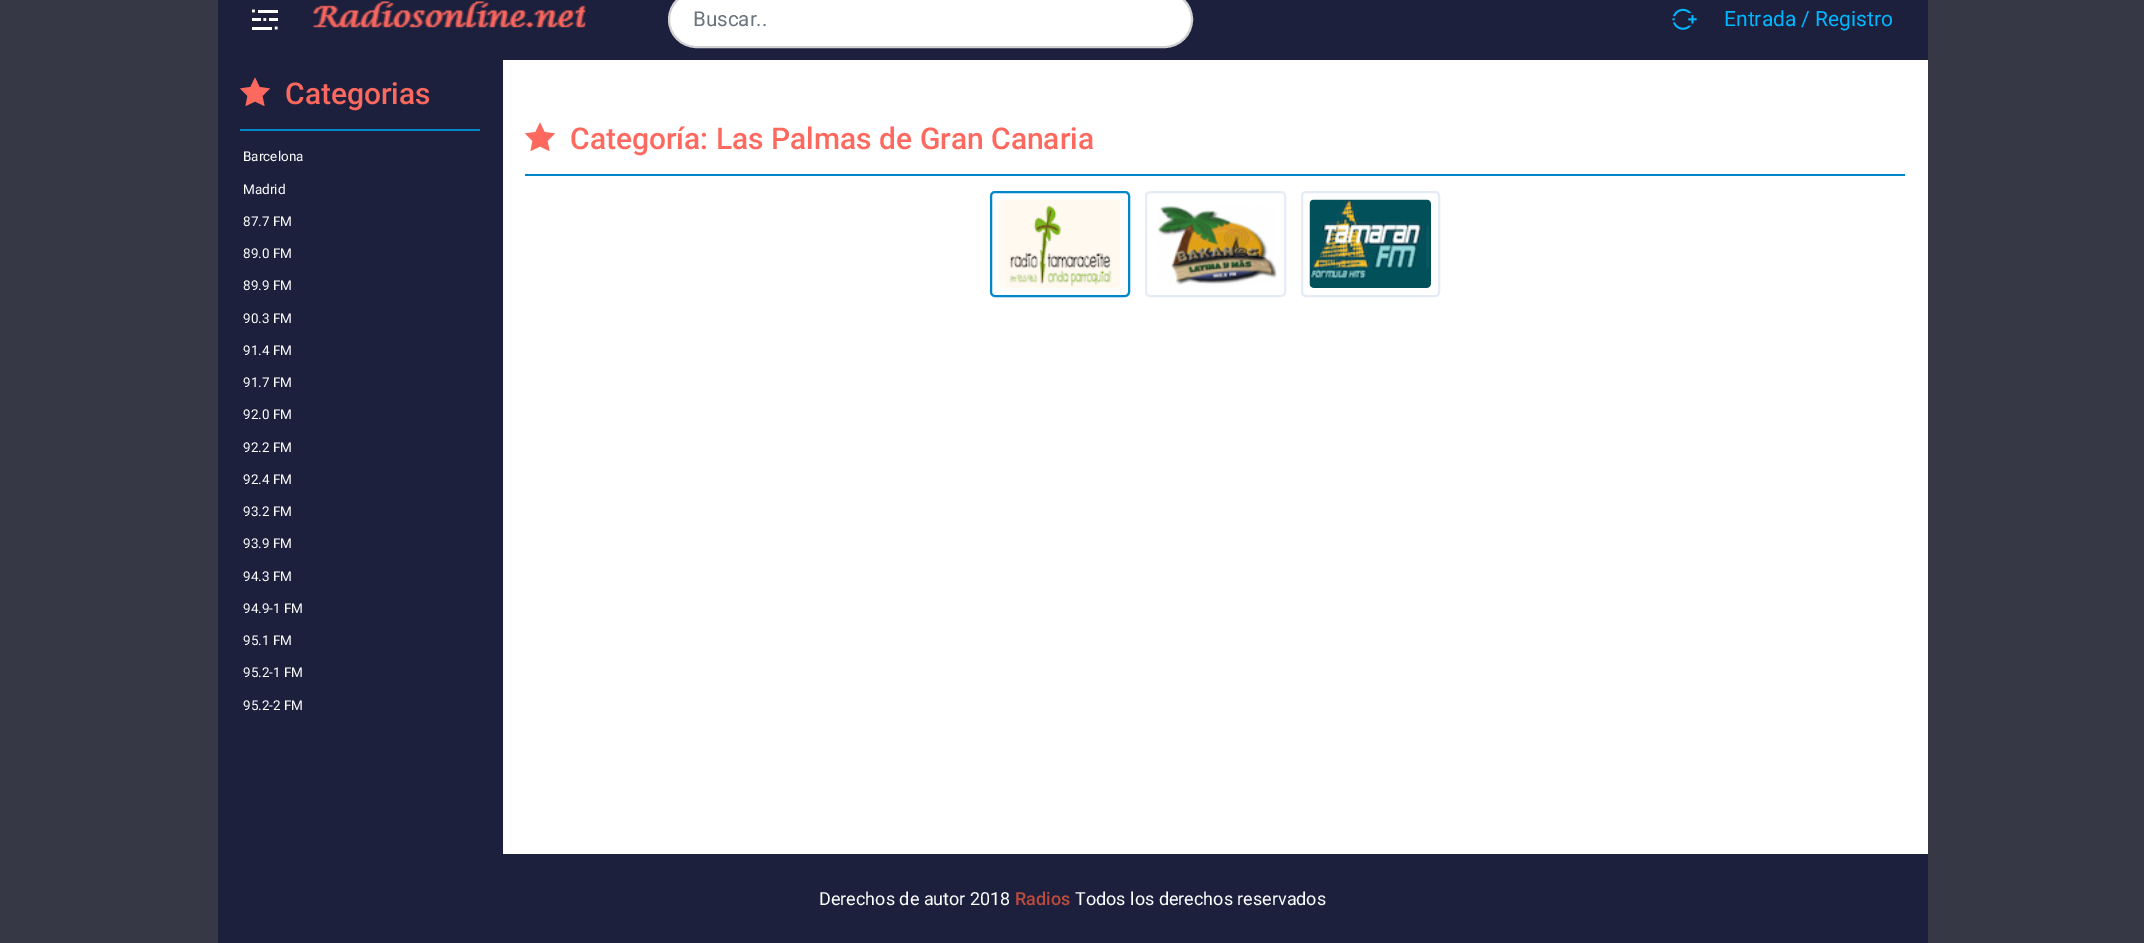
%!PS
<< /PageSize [2144 943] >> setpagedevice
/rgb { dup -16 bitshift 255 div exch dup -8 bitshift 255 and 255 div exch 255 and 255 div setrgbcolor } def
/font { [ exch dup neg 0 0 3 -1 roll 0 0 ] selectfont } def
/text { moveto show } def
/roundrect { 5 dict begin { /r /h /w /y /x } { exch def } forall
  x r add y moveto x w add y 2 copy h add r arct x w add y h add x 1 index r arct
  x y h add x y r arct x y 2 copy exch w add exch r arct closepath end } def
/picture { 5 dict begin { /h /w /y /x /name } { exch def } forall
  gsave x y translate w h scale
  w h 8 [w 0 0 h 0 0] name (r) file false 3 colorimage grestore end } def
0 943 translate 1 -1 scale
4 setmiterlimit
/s1 { /Roboto-Regular 20.5 font 16#6C757D rgb } def
/s2 { /Roboto-Regular 21 font 16#00B7FF rgb } def
/s3 { /Roboto-Medium 30 font 16#FD685F rgb } def
/s4 { /Roboto-Regular 13.5 font 16#FFFFFF rgb } def
/s5 { /Roboto-Regular 18 font 16#FFFFFF rgb } def
/s6 { /Roboto-Medium 18 font 16#BB4B3B rgb } def
16#373846 rgb
0 0 2144 943 rectfill
16#1C203C rgb
218 0 1710 60 rectfill
(pic1.raw) 252 9 26 21 picture
(pic2.raw) 313 1 273 27 picture
16#FFFFFF rgb
669 -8 523 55 27.5 roundrect gsave fill grestore
16#D0D0D2 rgb
2 setlinewidth
stroke
s1
(Buscar..) 693 26 text
(pic3.raw) 1672 8 25 22 picture
s2
(Entrada / Registro) 1724 26 text
16#1C203C rgb
218 60 285 794 rectfill
16#0087C9 rgb
240 129 240 2 rectfill
16#FD685F rgb
270 88.5 moveto 259.5 87 lineto 255 77.5 lineto 250.5 87 lineto 240 88.5 lineto 247.5 96 lineto 245.5 106 lineto 255 101.5 lineto 264.5 106 lineto 262.5 96 lineto closepath fill
s3
(Categorias) 285 104 text
s4
(Barcelona) 243 161 text
(Madrid) 243 194 text
(87.7 FM) 243 226 text
(89.0 FM) 243 258 text
(89.9 FM) 243 290 text
(90.3 FM) 243 323 text
(91.4 FM) 243 355 text
(91.7 FM) 243 387 text
(92.0 FM) 243 419 text
(92.2 FM) 243 452 text
(92.4 FM) 243 484 text
(93.2 FM) 243 516 text
(93.9 FM) 243 548 text
(94.3 FM) 243 581 text
(94.9-1 FM) 243 613 text
(95.1 FM) 243 645 text
(95.2-1 FM) 243 677 text
(95.2-2 FM) 243 710 text
503 60 1425 794 rectfill
16#0087C9 rgb
525 174 1380 2 rectfill
16#FD685F rgb
555 133.5 moveto 544.5 132 lineto 540 122.5 lineto 535.5 132 lineto 525 133.5 lineto 532.5 141 lineto 530.5 151 lineto 540 146.5 lineto 549.5 151 lineto 547.5 141 lineto closepath fill
s3
(Categoría: Las Palmas de Gran Canaria) 570 149 text
16#0087C9 rgb
991 192 138 104 4 roundrect stroke
(pic4.raw) 999 199 122 89 picture
16#E6ECF5 rgb
1146 192 139 104 4 roundrect stroke
(pic5.raw) 1157 206 120 79 picture
1302 192 137 104 4 roundrect stroke
(pic6.raw) 1309 199 122 89 picture
16#1C203C rgb
218 854 1710 89 rectfill
s5
(Derechos de autor 2018) 819 905 text
s6
(Radios) 1015 905 text
s5
(Todos los derechos reservados) 1075 905 text
showpage
